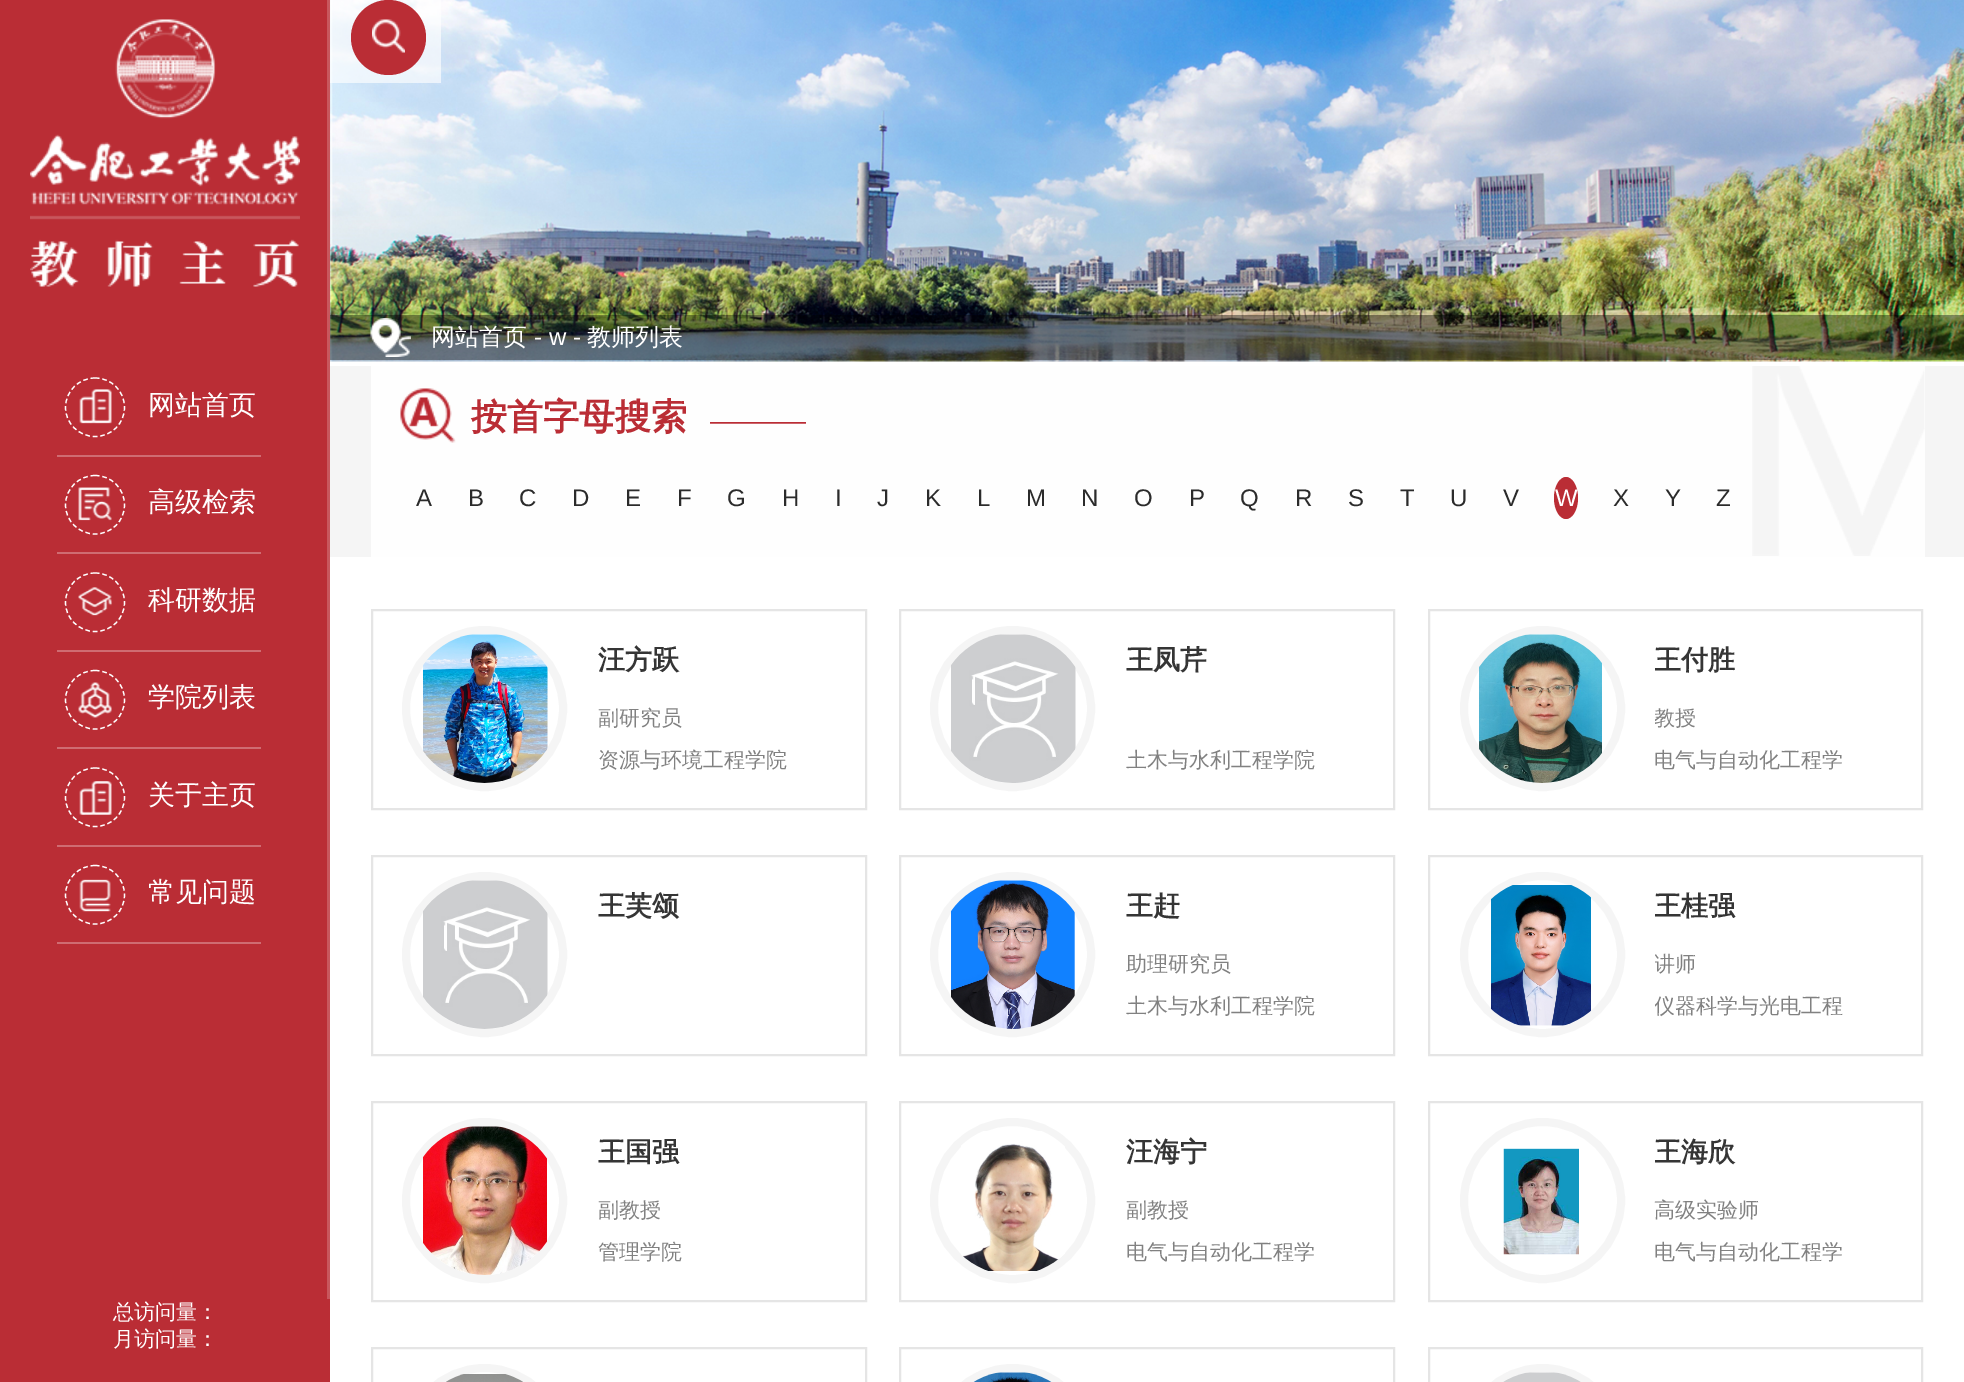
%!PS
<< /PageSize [1964 1382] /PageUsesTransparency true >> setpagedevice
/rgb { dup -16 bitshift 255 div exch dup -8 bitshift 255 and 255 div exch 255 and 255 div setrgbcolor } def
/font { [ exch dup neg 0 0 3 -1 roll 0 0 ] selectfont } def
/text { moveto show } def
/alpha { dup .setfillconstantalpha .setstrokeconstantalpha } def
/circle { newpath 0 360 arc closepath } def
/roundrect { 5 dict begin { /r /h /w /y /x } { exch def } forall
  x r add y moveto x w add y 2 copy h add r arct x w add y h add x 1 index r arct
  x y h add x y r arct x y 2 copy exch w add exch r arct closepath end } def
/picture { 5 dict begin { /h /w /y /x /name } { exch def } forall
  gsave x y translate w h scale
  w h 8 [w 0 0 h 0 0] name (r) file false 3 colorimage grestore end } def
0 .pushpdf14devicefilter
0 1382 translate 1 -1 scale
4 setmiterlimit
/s1 { /WenQuanYiZenHei-Medium 27 font 16#FFFFFF rgb } def
/s2 { /WenQuanYiZenHei-Medium 21 font 16#FFFFFF rgb } def
/s3 { /WenQuanYiZenHei-Medium 24 font 16#FFFFFF rgb } def
/s4 { /LiberationSans-Regular 24 font 16#FFFFFF rgb } def
/s5 { /WenQuanYiZenHei-Bold 36 font 16#BA2D35 rgb } def
/s6 { /LiberationSans-Regular 24 font 16#BA2D35 rgb } def
/s7 { /LiberationSans-Regular 24 font 16#2B2B2B rgb } def
/s8 { /WenQuanYiZenHei-Bold 27 font 16#353535 rgb } def
/s9 { /WenQuanYiZenHei-Medium 21 font 16#818181 rgb } def
16#FFFFFF rgb
0 0 1964 1382 rectfill
16#BA2D35 rgb
0 0 327 1299 rectfill
16#C8575D rgb
327 0 3 1299 rectfill
(pic1.raw) 30 19 270 268 picture
16#CF6C72 rgb
57 455 204 2 rectfill
(pic2.raw) 79 389 33 35 picture
16#FFFFFF rgb
1.2 setlinewidth
[4.5 3] 0 setdash
95 378 moveto 111.5 378 124.5 391 124.5 407.5 curveto 124.5 423.5 111.5 436.5 95 436.5 curveto 79 436.5 65.5 423.5 65.5 407.5 curveto 65.5 391 79 378 95 378 curveto closepath stroke
s1
(网站首页) 148 414 text
16#CF6C72 rgb
57 552 204 2 rectfill
(pic3.raw) 78 487 34 34 picture
16#FFFFFF rgb
95 475.5 moveto 111.5 475.5 124.5 488.5 124.5 505 curveto 124.5 521 111.5 534 95 534 curveto 79 534 65.5 521 65.5 505 curveto 65.5 488.5 79 475.5 95 475.5 curveto closepath stroke
(高级检索) 148 511 text
16#CF6C72 rgb
57 650 204 2 rectfill
(pic4.raw) 78 587 34 29 picture
16#FFFFFF rgb
95 573 moveto 111.5 573 124.5 586 124.5 602.5 curveto 124.5 618.5 111.5 631.5 95 631.5 curveto 79 631.5 65.5 618.5 65.5 602.5 curveto 65.5 586 79 573 95 573 curveto closepath stroke
(科研数据) 148 609 text
16#CF6C72 rgb
57 747 204 2 rectfill
(pic5.raw) 78 682 34 36 picture
16#FFFFFF rgb
95 670.5 moveto 111.5 670.5 124.5 683.5 124.5 700 curveto 124.5 716 111.5 729 95 729 curveto 79 729 65.5 716 65.5 700 curveto 65.5 683.5 79 670.5 95 670.5 curveto closepath stroke
(学院列表) 148 706 text
16#CF6C72 rgb
57 845 204 2 rectfill
(pic6.raw) 79 781 33 34 picture
16#FFFFFF rgb
95 768 moveto 111.5 768 124.5 781 124.5 797.5 curveto 124.5 813.5 111.5 826.5 95 826.5 curveto 79 826.5 65.5 813.5 65.5 797.5 curveto 65.5 781 79 768 95 768 curveto closepath stroke
(关于主页) 148 804 text
16#CF6C72 rgb
57 942 204 2 rectfill
(pic7.raw) 79 879 32 33 picture
16#FFFFFF rgb
95 865.5 moveto 111.5 865.5 124.5 878.5 124.5 895 curveto 124.5 911 111.5 924 95 924 curveto 79 924 65.5 911 65.5 895 curveto 65.5 878.5 79 865.5 95 865.5 curveto closepath stroke
(常见问题) 148 901 text
16#BA2D35 rgb
0 1299 330 83 rectfill
s2
(总访问量：) 113 1319 text
(月访问量：) 113 1346 text
(pic9.raw) 330 0 1634 362 picture
0.64 alpha
330 0 111 83 rectfill
1 alpha
16#BA2D35 rgb
388.5 37.5 37.5 circle fill
(pic8.raw) 372 19 33 34 picture
0.4 alpha
16#000000 rgb
330 315 1634 45 rectfill
1 alpha
(pic10.raw) 370 318 41 39 picture
s3
(网站首页) 431 345 text
s4
(- w -) 534 345 text
s3
(教师列表) 587 345 text
16#F5F5F5 rgb
330 366 1634 191 rectfill
16#FEFEFE rgb
371 366 1554 191 rectfill
(pic11.raw) 1752 366 173 190 picture
(pic12.raw) 400 388 56 55 picture
s5
(按首字母搜索) 471 429 text
s6
(————) 710 429 text
s7
(A) 416 506 text
(B) 468 506 text
(C) 519 506 text
(D) 572 506 text
(E) 625 506 text
(F) 677 506 text
(G) 727 506 text
(H) 782 506 text
(I) 835 506 text
(J) 877 506 text
(K) 925 506 text
(L) 977 506 text
(M) 1026 506 text
(N) 1081 506 text
(O) 1134 506 text
(P) 1189 506 text
(Q) 1240 506 text
(R) 1295 506 text
(S) 1348 506 text
(T) 1400 506 text
(U) 1450 506 text
(V) 1503 506 text
16#BA2D35 rgb
1566 477 moveto 1572.5 477 1578 486.5 1578 498 curveto 1578 509.5 1572.5 519 1566 519 curveto 1559.5 519 1554 509.5 1554 498 curveto 1554 486.5 1559.5 477 1566 477 curveto closepath fill
s4
(W) 1555 506 text
s7
(X) 1613 506 text
(Y) 1665 506 text
(Z) 1716 506 text
16#E5E5E5 rgb
2 setlinewidth
[] 0 setdash
372 610 494 199 rectstroke
16#F5F5F5 rgb
8 setlinewidth
484.5 708.5 78.5 circle stroke
(pic13.raw) 423 634 125 149 picture
s8
(汪方跃) 598 669 text
s9
(副研究员) 598 725 text
(资源与环境工程学院) 598 767 text
16#E5E5E5 rgb
2 setlinewidth
900 610 494 199 rectstroke
16#F5F5F5 rgb
8 setlinewidth
1012.5 708.5 78.5 circle stroke
(pic14.raw) 951 634 125 149 picture
s8
(王凤芹) 1126 669 text
s9
(土木与水利工程学院) 1126 767 text
16#E5E5E5 rgb
2 setlinewidth
1429 610 493 199 rectstroke
16#F5F5F5 rgb
8 setlinewidth
1542.5 708.5 78.5 circle stroke
(pic15.raw) 1479 634 123 149 picture
gsave
1655 641 207 39 rectclip
s8
(王付胜) 1654 669 text
grestore
gsave
1655 695 207 45 rectclip
s9
(教授) 1654 725 text
grestore
s9
(电气与自动化工程学) 1654 767 text
16#E5E5E5 rgb
2 setlinewidth
372 856 494 199 rectstroke
16#F5F5F5 rgb
8 setlinewidth
484.5 954.5 78.5 circle stroke
(pic16.raw) 423 880 125 149 picture
s8
(王芙颂) 598 915 text
16#E5E5E5 rgb
2 setlinewidth
900 856 494 199 rectstroke
16#F5F5F5 rgb
8 setlinewidth
1012.5 954.5 78.5 circle stroke
(pic17.raw) 951 880 124 149 picture
s8
(王赶) 1126 915 text
s9
(助理研究员) 1126 971 text
(土木与水利工程学院) 1126 1013 text
16#E5E5E5 rgb
2 setlinewidth
1429 856 493 199 rectstroke
16#F5F5F5 rgb
8 setlinewidth
1542.5 954.5 78.5 circle stroke
(pic18.raw) 1491 885 100 141 picture
gsave
1655 887 207 39 rectclip
s8
(王桂强) 1654 915 text
grestore
gsave
1655 941 207 45 rectclip
s9
(讲师) 1654 971 text
grestore
gsave
1655 986 207 39 rectclip
s9
(仪器科学与光电工程) 1654 1013 text
grestore
16#E5E5E5 rgb
2 setlinewidth
372 1102 494 199 rectstroke
16#F5F5F5 rgb
8 setlinewidth
484.5 1200.5 78.5 circle stroke
(pic19.raw) 423 1126 124 149 picture
s8
(王国强) 598 1161 text
s9
(副教授) 598 1217 text
(管理学院) 598 1259 text
16#E5E5E5 rgb
2 setlinewidth
900 1102 494 199 rectstroke
16#F5F5F5 rgb
8 setlinewidth
1012.5 1200.5 78.5 circle stroke
(pic20.raw) 961 1131 104 140 picture
s8
(汪海宁) 1126 1161 text
s9
(副教授) 1126 1217 text
(电气与自动化工程学) 1126 1259 text
16#E5E5E5 rgb
2 setlinewidth
1429 1102 493 199 rectstroke
16#F5F5F5 rgb
8 setlinewidth
1542.5 1200.5 78.5 circle stroke
(pic21.raw) 1503 1148 76 107 picture
gsave
1655 1133 207 39 rectclip
s8
(王海欣) 1654 1161 text
grestore
s9
(高级实验师) 1654 1217 text
(电气与自动化工程学) 1654 1259 text
16#E5E5E5 rgb
2 setlinewidth
372 1348 494 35 rectstroke
16#F5F5F5 rgb
8 setlinewidth
406 1368 157 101 78.5 roundrect stroke
(pic22.raw) 446 1374 77 8 picture
16#E5E5E5 rgb
2 setlinewidth
900 1348 494 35 rectstroke
16#F5F5F5 rgb
8 setlinewidth
934 1368 157 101 78.5 roundrect stroke
(pic23.raw) 973 1372 79 10 picture
16#E5E5E5 rgb
2 setlinewidth
1429 1348 493 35 rectstroke
16#F5F5F5 rgb
8 setlinewidth
1464 1368 157 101 78.5 roundrect stroke
(pic24.raw) 1503 1372 78 10 picture
.poppdf14devicefilter showpage
